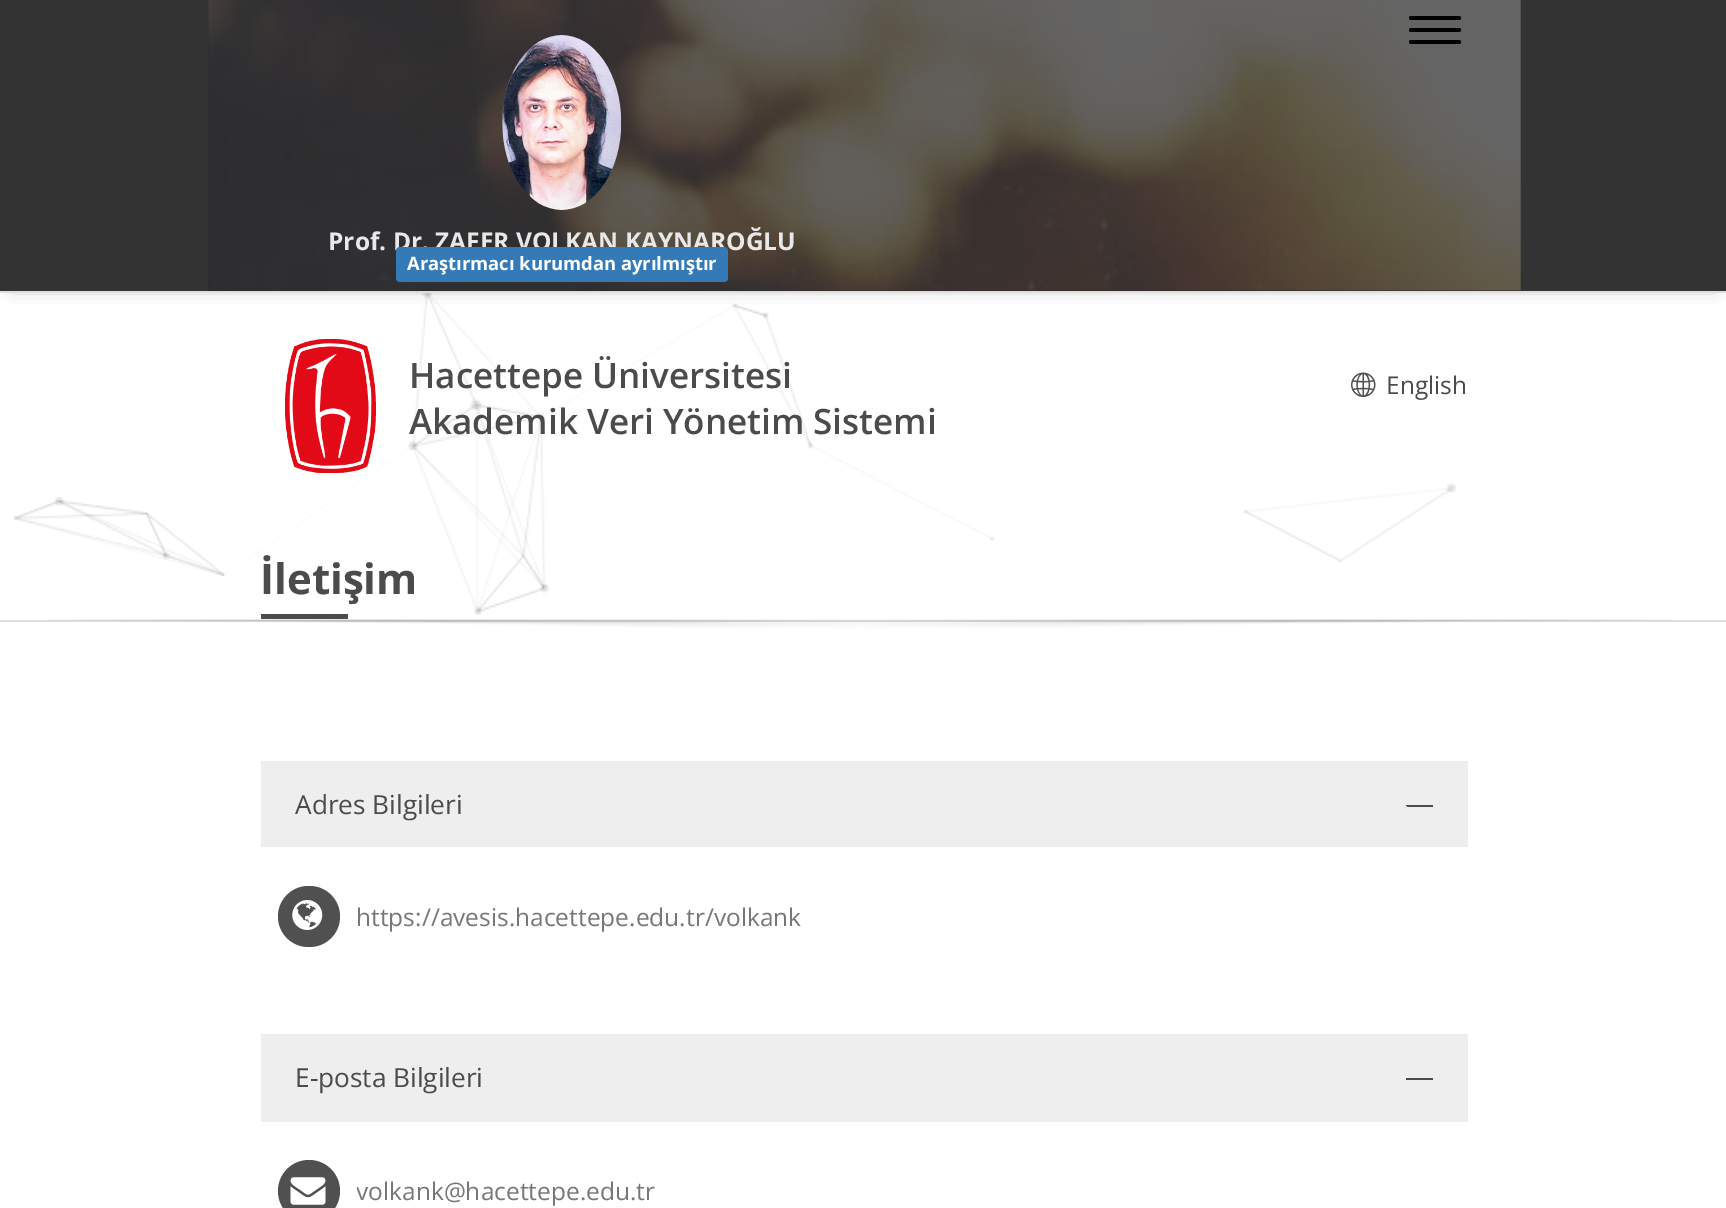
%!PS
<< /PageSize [1726 1208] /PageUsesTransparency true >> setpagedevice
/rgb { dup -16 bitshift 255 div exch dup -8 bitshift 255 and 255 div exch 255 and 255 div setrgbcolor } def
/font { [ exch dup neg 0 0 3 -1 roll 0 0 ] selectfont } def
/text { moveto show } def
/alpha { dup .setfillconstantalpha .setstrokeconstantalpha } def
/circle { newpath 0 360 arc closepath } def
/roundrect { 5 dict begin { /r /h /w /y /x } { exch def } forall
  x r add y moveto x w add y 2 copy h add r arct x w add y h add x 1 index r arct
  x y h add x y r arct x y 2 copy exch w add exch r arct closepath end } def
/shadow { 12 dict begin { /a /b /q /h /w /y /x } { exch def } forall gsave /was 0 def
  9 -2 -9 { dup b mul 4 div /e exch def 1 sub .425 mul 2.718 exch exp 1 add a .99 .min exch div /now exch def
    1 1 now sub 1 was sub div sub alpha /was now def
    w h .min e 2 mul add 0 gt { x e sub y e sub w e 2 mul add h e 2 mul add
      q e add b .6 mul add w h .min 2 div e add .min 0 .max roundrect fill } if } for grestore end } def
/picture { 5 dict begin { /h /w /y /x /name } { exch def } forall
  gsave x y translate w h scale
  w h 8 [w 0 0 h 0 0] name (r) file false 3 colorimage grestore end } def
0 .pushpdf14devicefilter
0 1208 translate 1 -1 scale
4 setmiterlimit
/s1 { /OpenSans-Bold 24.5 font 16#E8E8E8 rgb } def
/s2 { /OpenSans-Bold 18.4 font 16#FFFFFF rgb } def
/s3 { /OpenSans-SemiBold 35 font 16#4B4B4B rgb } def
/s4 { /OpenSans-Regular 24.5 font 16#4B4B4B rgb } def
/s5 { /OpenSans-Bold 42 font 16#4B4B4B rgb } def
/s6 { /OpenSans-Regular 26.25 font 16#4B4B4B rgb } def
/s7 { /OpenSans-Regular 24.5 font 16#777777 rgb } def
16#FFFFFF rgb
0 0 1726 1208 rectfill
(pic3.raw) 13 293 1443 323 picture
16#000000 rgb
12 16 1703 268 0 9 0.5 shadow
16#333333 rgb
0 0 1726 291 rectfill
16#272727 rgb
208 0 1313 291 rectfill
16#DEDEDE rgb
0 291 1726 2 rectfill
(pic1.raw) 208 0 1313 291 picture
16#000000 rgb
1409 16 52 4 2 roundrect fill
1409 28 52 4 2 roundrect fill
1409 40 52 4 2 roundrect fill
(pic2.raw) 502 35 120 175 picture
s1
(Prof. Dr. ZAFER VOLKAN KAYNAROĞLU) 328 250 text
16#337AB7 rgb
396 247 332 35 4 roundrect fill
s2
(Araştırmacı kurumdan ayrılmıştır) 407 270 text
16#DEDEDE rgb
0 620 1726 2 rectfill
(pic4.raw) 285 339 91 134 picture
s3
(Hacettepe Üniversitesi) 409 388 text
(Akademik Veri Yönetim Sistemi) 409 434 text
(pic5.raw) 1351 372 25 25 picture
s4
(English) 1386 394 text
s5
(İletişim) 260 594 text
261 614 87 5 rectfill
(pic6.raw) 46 619 1628 9 picture
16#EEEEEE rgb
261 761 1207 86 rectfill
s6
(Adres Bilgileri) 295 814 text
1407 806 26 1 rectfill
1406 805 27 1 rectfill
16#505050 rgb
278 886 62 61 30.5 roundrect fill
(pic7.raw) 292 900 31 30 picture
s7
(https://avesis.hacettepe.edu.tr/volkank) 356 926 text
16#EEEEEE rgb
261 1034 1207 88 rectfill
s6
(E-posta Bilgileri) 295 1087 text
1406 1078 27 2 rectfill
16#505050 rgb
309 1191 31 circle fill
(pic8.raw) 290 1177 36 28 picture
gsave
357 1160 1094 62 rectclip
s7
(volkank@hacettepe.edu.tr) 356 1200 text
grestore
.poppdf14devicefilter showpage
